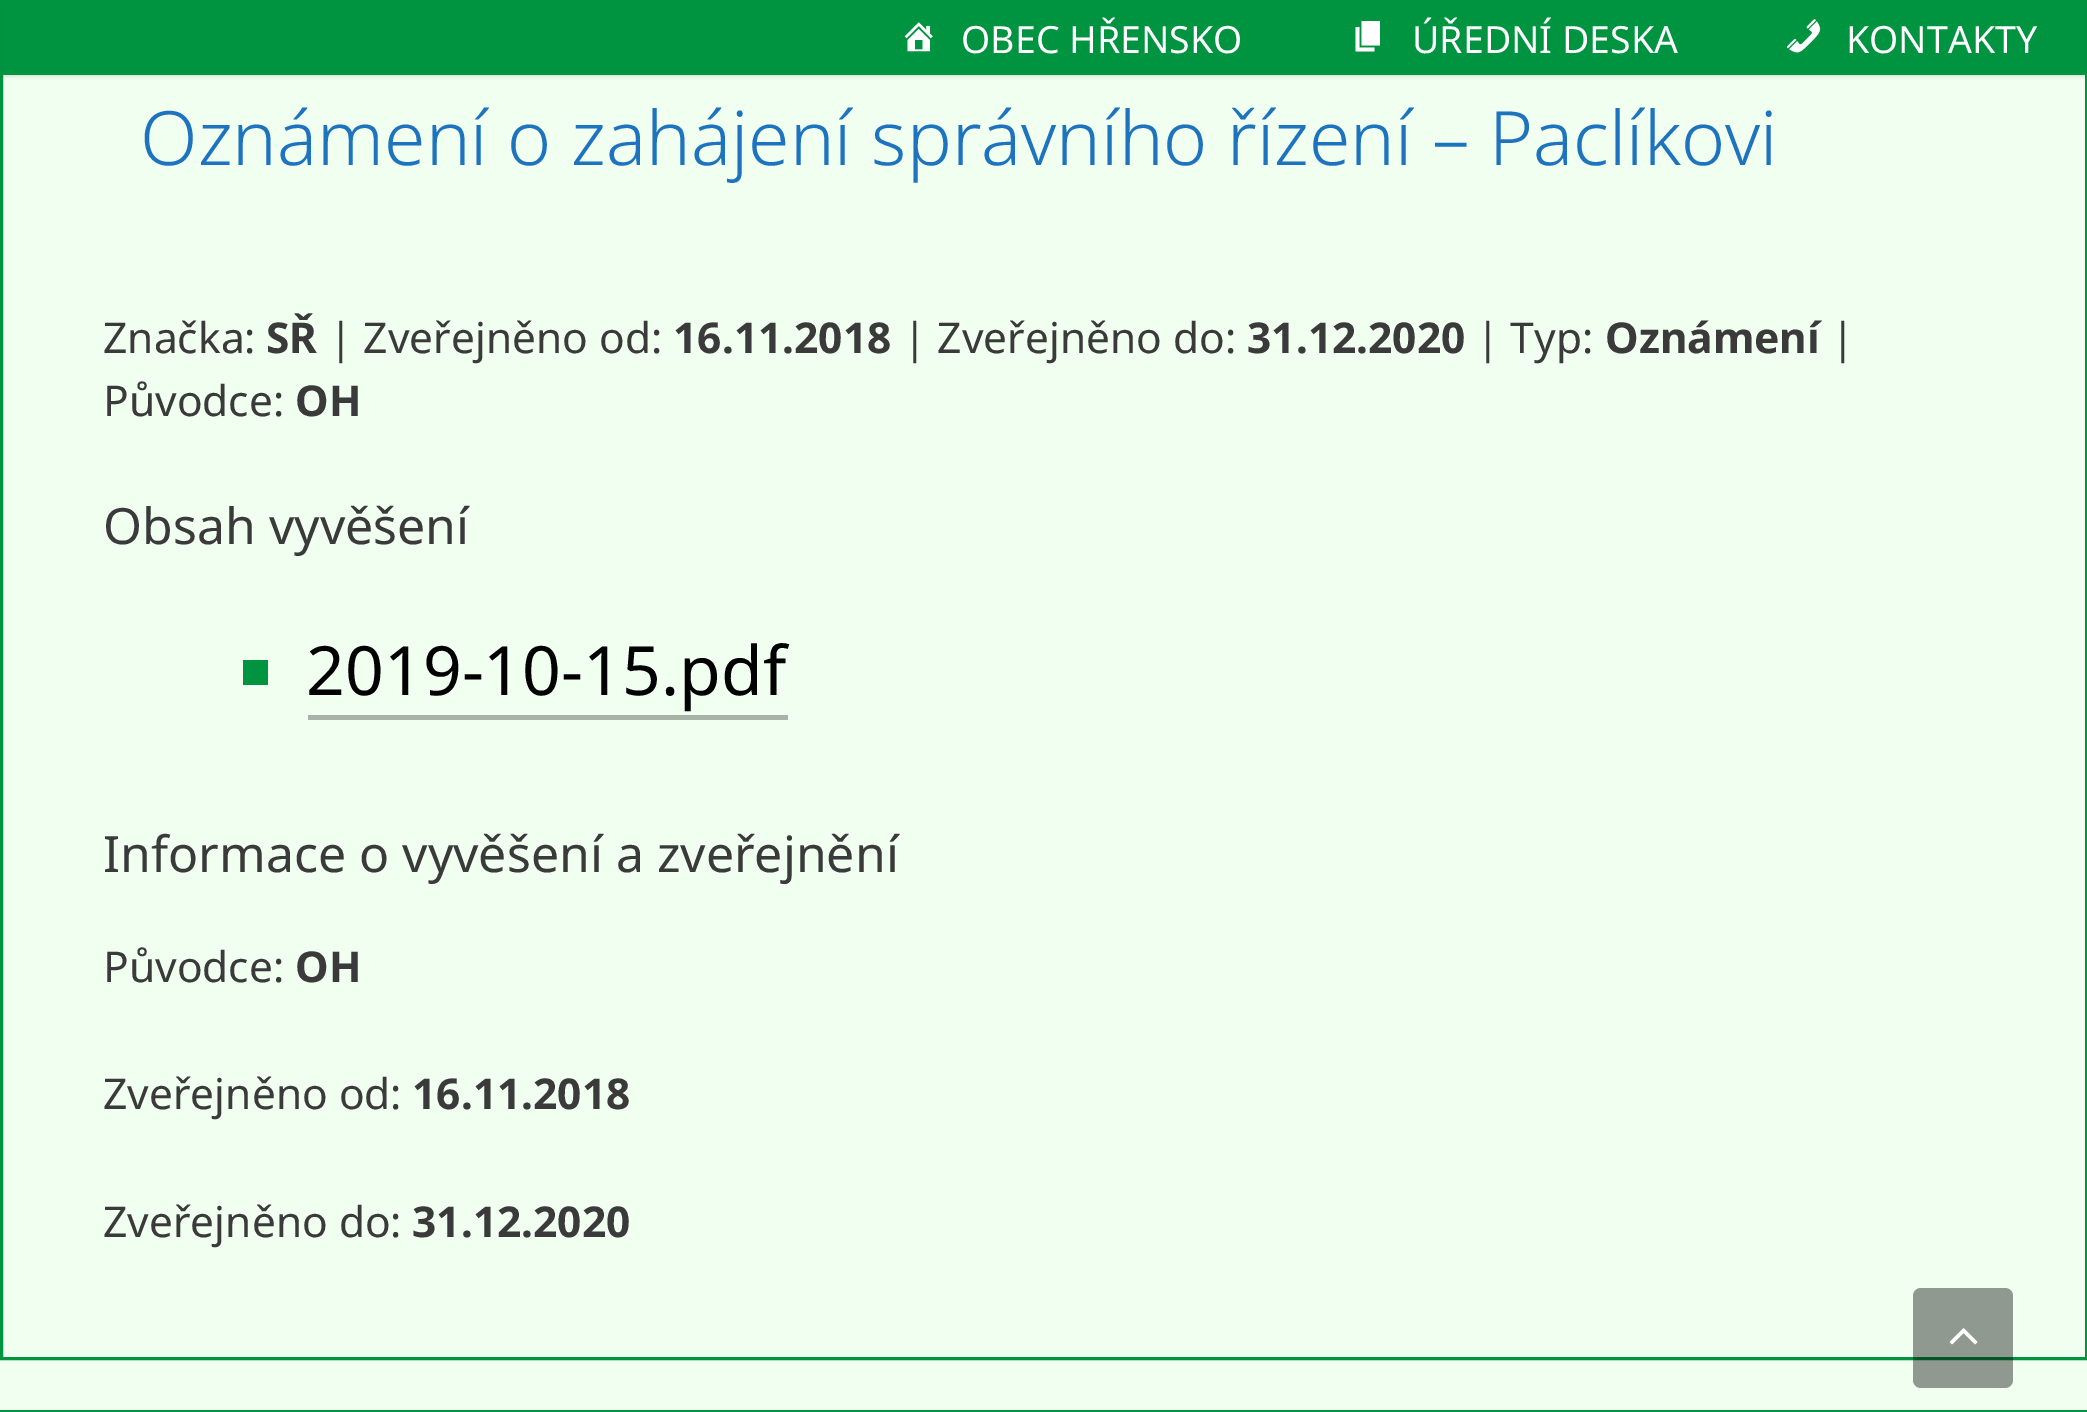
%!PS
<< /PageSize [2087 1412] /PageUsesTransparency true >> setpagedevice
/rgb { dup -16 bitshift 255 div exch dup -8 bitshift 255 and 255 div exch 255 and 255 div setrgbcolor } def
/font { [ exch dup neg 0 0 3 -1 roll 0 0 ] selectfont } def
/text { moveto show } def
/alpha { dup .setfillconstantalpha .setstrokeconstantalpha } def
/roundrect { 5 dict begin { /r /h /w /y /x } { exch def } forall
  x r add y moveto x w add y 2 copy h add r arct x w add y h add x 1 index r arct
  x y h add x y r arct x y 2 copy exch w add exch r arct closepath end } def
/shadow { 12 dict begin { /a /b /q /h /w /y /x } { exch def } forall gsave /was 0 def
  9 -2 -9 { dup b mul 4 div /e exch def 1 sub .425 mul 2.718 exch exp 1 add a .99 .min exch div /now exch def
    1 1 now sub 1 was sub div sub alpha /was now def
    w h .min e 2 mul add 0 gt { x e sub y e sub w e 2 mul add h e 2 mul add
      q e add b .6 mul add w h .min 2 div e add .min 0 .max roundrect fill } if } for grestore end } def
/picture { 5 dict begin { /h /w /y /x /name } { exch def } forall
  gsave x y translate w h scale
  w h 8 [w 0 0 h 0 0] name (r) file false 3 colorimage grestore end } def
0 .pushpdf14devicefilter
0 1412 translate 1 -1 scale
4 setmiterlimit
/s1 { /NotoSans-Regular 37.5 font 16#FFFFFF rgb } def
/s2 { /NotoSans-Light 75 font 16#1E73BE rgb } def
/s3 { /NotoSans-Regular 42.5 font 16#3A3A3A rgb } def
/s4 { /NotoSans-Bold 42.5 font 16#3A3A3A rgb } def
/s5 { /NotoSans-Regular 50 font 16#3A3A3A rgb } def
/s6 { /NotoSans-Regular 68 font 16#000000 rgb } def
16#F0FFF0 rgb
0 0 2087 1412 rectfill
16#009340 rgb
3 setlinewidth
1.5 -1.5 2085 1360 rectstroke
16#000000 rgb
5 10 2078 65 0 2.5 0.2 shadow
16#009340 rgb
2 0 2084 75 rectfill
(pic1.raw) 904 22 29 30 picture
s1
(OBEC HŘENSKO) 961 53 text
1361.5 45.5 moveto 1361.5 21 lineto 1380 21 lineto 1380 45.5 lineto closepath 1359.5 47.5 moveto 1374.5 47.5 lineto 1374.5 51.5 lineto 1355.5 51.5 lineto 1355.5 27 lineto 1359.5 27 lineto closepath fill
(ÚŘEDNÍ DESKA) 1412 53 text
(pic2.raw) 1786 19 35 34 picture
(KONTAKTY) 1846 53 text
s2
(Oznámení o zahájení správního řízení – Paclíkovi) 140 165 text
s3
(Značka:) 103 353 text
s4
(SŘ) 266 353 text
s3
(| Zveřejněno od:) 329 353 text
s4
(16.11.2018) 673 353 text
s3
(| Zveřejněno do:) 903 353 text
s4
(31.12.2020) 1247 353 text
s3
(| Typ:) 1476 353 text
s4
(Oznámení) 1605 353 text
s3
(|) 1831 353 text
(Původce:) 103 416 text
s4
(OH) 295 416 text
s5
(Obsah vyvěšení) 103 544 text
16#009340 rgb
243 660 25 25 rectfill
s6
(2019-10-15.pdf) 306 695 text
16#A8B3A8 rgb
308 715 480 5 rectfill
s5
(Informace o vyvěšení a zveřejnění) 103 872 text
s3
(Původce:) 103 982 text
s4
(OH) 295 982 text
s3
(Zveřejněno od:) 103 1109 text
s4
(16.11.2018) 412 1109 text
s3
(Zveřejněno do:) 103 1237 text
s4
(31.12.2020) 412 1237 text
16#009340 rgb
1.5 1411.5 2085 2 rectstroke
0.4 alpha
16#000000 rgb
1913 1288 100 100 8 roundrect fill
1 alpha
(pic3.raw) 1949 1328 29 17 picture
.poppdf14devicefilter showpage
